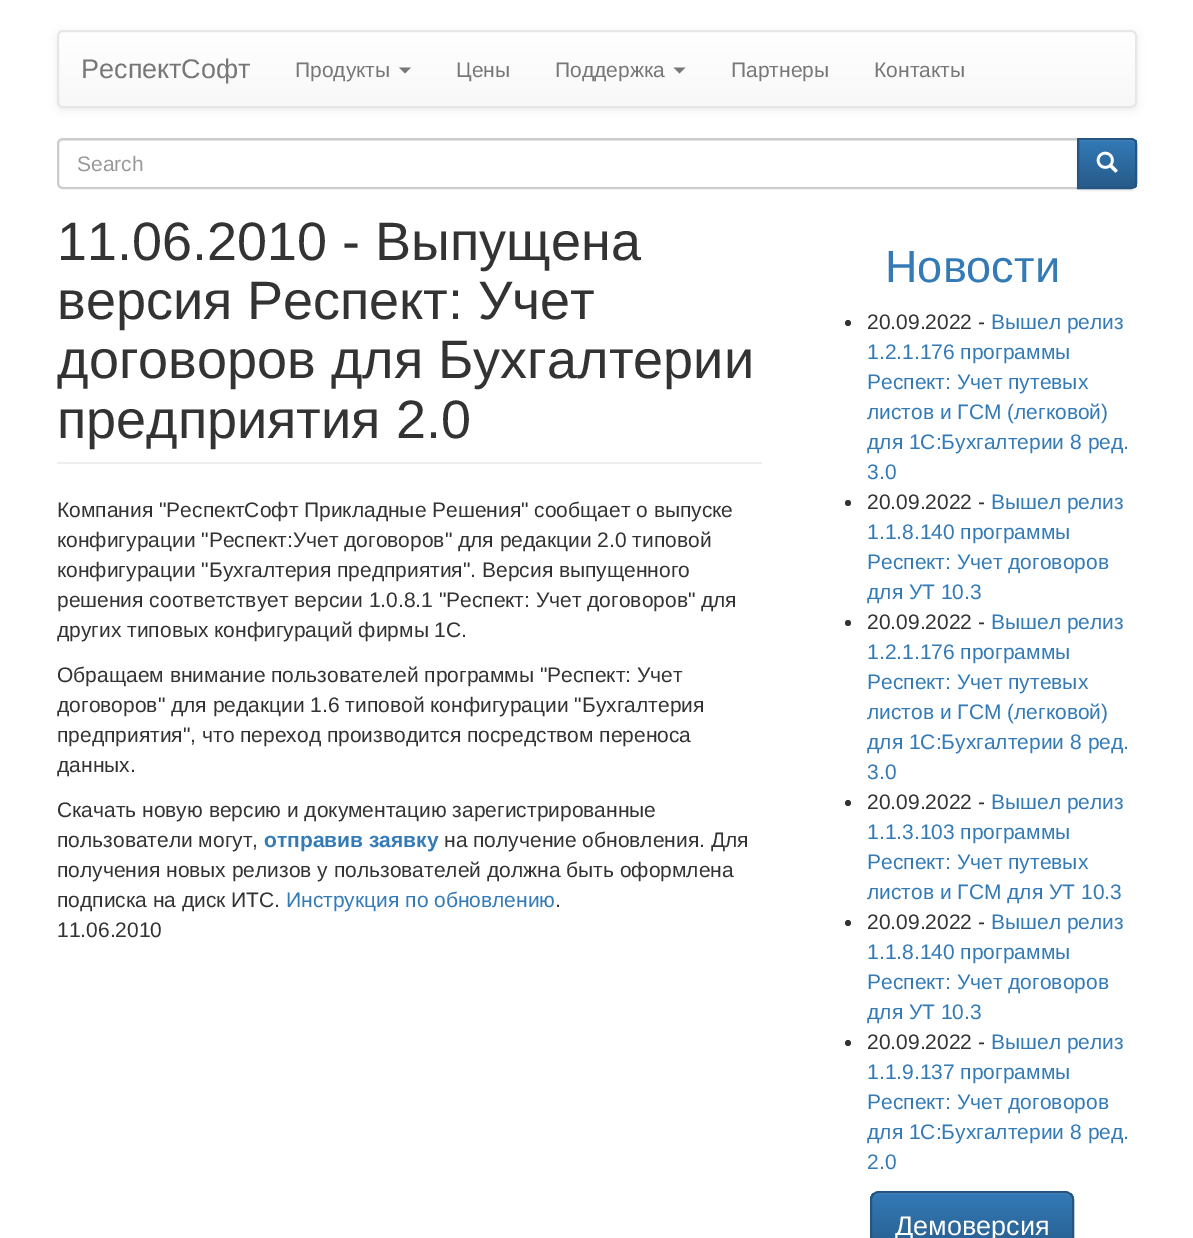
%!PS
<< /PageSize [1193 1238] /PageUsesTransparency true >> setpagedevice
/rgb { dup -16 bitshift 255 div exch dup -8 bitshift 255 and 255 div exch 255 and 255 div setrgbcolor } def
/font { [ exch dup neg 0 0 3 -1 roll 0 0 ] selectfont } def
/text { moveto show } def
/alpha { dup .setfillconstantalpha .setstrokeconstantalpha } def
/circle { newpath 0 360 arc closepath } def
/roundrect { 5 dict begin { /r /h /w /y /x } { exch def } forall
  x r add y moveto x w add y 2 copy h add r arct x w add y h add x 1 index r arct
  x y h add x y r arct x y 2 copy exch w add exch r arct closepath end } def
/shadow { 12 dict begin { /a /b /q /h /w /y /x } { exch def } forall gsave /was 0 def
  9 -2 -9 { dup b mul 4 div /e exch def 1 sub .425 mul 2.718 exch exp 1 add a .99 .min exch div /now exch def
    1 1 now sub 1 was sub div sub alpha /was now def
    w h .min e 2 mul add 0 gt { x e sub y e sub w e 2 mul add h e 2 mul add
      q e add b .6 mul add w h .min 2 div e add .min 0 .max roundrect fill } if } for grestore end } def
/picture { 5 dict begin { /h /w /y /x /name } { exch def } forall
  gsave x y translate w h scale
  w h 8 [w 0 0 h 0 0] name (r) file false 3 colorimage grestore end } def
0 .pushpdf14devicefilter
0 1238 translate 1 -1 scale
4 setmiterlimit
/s1 { /LiberationSans-Regular 27 font 16#777777 rgb } def
/s2 { /LiberationSans-Regular 21 font 16#777777 rgb } def
/s3 { /LiberationSans-Regular 21 font 16#999999 rgb } def
/s4 { /LiberationSans-Regular 54 font 16#333333 rgb } def
/s5 { /LiberationSans-Regular 21 font 16#333333 rgb } def
/s6 { /LiberationSans-Bold 21 font 16#337AB7 rgb } def
/s7 { /LiberationSans-Regular 21 font 16#337AB7 rgb } def
/s8 { /LiberationSans-Regular 45 font 16#337AB7 rgb } def
/s9 { /LiberationSans-Regular 27 font 16#FFFFFF rgb } def
16#FFFFFF rgb
0 0 1193 1238 rectfill
16#000000 rgb
57 32 1080 78 6 4 0.07 shadow
gsave
57 30 1080 78 6 roundrect clip newpath
gsave 57 32 moveto 1137 32 lineto 1137 107 lineto 57 107 lineto closepath clip newpath
<< /ShadingType 2 /ColorSpace /DeviceRGB /Coords [597 31 597 107] /Extend [true true] /Function << /FunctionType 2 /Domain [0 1] /C0 [1 1 1] /C1 [0.973 0.973 0.973] /N 1 >> >> shfill grestore
grestore
16#E7E7E7 rgb
2 setlinewidth
58 31 1078 76 5 roundrect stroke
s1
(РеспектСофт) 81 78 text
s2
(Продукты) 295 77 text
399 67.5 moveto 411 67.5 lineto 405 73.5 lineto closepath fill
(Цены) 456 77 text
(Поддержка) 555 77 text
673.5 67.5 moveto 685.5 67.5 lineto 679.5 73.5 lineto closepath fill
(Партнеры) 731 77 text
(Контакты) 874 77 text
16#ECECEC rgb
63 141 moveto 1077 141 lineto 1077 140 lineto 64 140 lineto 62 140 61 141 60 142 curveto closepath fill
16#CCCCCC rgb
63 139 moveto 1078 139 lineto 1078 188 lineto 63 188 lineto 60 188 58 186 58 183 curveto 58 144 lineto 58 141 60 139 63 139 curveto closepath stroke
s3
(Search) 77 171 text
16#000000 rgb
1077 140 60 51 6 1 0.07 shadow
gsave
1077 138 moveto 1131 138 lineto 1134.5 138 1137 140.5 1137 144 curveto 1137 183 lineto 1137 186.5 1134.5 189 1131 189 curveto 1077 189 lineto closepath clip newpath
gsave 1079 140 moveto 1137 140 lineto 1137 188 lineto 1079 188 lineto closepath clip newpath
<< /ShadingType 2 /ColorSpace /DeviceRGB /Coords [1107 140 1107 188] /Extend [true true] /Function << /FunctionType 2 /Domain [0 1] /C0 [0.2 0.478 0.718] /C1 [0.149 0.353 0.533] /N 1 >> >> shfill grestore
grestore
16#528EC2 rgb
1079 140 moveto 1079 141 lineto 1131 141 lineto 1133 141 1136 143 1136 146 curveto 1136 143 1134 140 1131 140 curveto closepath fill
16#245580 rgb
1078 139 moveto 1131 139 lineto 1134 139 1136 141 1136 144 curveto 1136 183 lineto 1136 186 1134 188 1131 188 curveto 1078 188 lineto closepath stroke
(pic1.raw) 1096 151 22 22 picture
16#EEEEEE rgb
57 462 705 2 rectfill
s4
(11.06.2010 - Выпущена) 57 260 text
(версия Респект: Учет) 57 319 text
(договоров для Бухгалтерии) 57 378 text
(предприятия 2.0) 57 438 text
s5
(Компания "РеспектСофт Прикладные Решения" сообщает о выпуске) 57 517 text
(конфигурации "Респект:Учет договоров" для редакции 2.0 типовой) 57 547 text
(конфигурации "Бухгалтерия предприятия". Версия выпущенного) 57 577 text
(решения соответствует версии 1.0.8.1 "Респект: Учет договоров" для) 57 607 text
(других типовых конфигураций фирмы 1С.) 57 637 text
(Обращаем внимание пользователей программы "Респект: Учет) 57 682 text
(договоров" для редакции 1.6 типовой конфигурации "Бухгалтерия) 57 712 text
(предприятия", что переход производится посредством переноса) 57 742 text
(данных.) 57 772 text
(Скачать новую версию и документацию зарегистрированные) 57 817 text
(пользователи могут,) 57 847 text
s6
(отправив заявку) 264 847 text
s5
(на получение обновления. Для) 444 847 text
(получения новых релизов у пользователей должна быть оформлена) 57 877 text
(подписка на диск ИТС.) 57 907 text
s7
(Инструкция по обновлению) 286 907 text
s5
(.) 555 907 text
(11.06.2010) 57 937 text
s8
(Новости) 885 282 text
16#333333 rgb
848 323 3 circle fill
s5
(20.09.2022 -) 867 329 text
s7
(Вышел релиз) 991 329 text
(1.2.1.176 программы) 867 359 text
(Респект: Учет путевых) 867 389 text
(листов и ГСМ \(легковой\)) 867 419 text
(для 1С:Бухгалтерии 8 ред.) 867 449 text
(3.0) 867 479 text
16#333333 rgb
848 503 3 circle fill
(20.09.2022 -) 867 509 text
s7
(Вышел релиз) 991 509 text
(1.1.8.140 программы) 867 539 text
(Респект: Учет договоров) 867 569 text
(для УТ 10.3) 867 599 text
16#333333 rgb
848 623 3 circle fill
(20.09.2022 -) 867 629 text
s7
(Вышел релиз) 991 629 text
(1.2.1.176 программы) 867 659 text
(Респект: Учет путевых) 867 689 text
(листов и ГСМ \(легковой\)) 867 719 text
(для 1С:Бухгалтерии 8 ред.) 867 749 text
(3.0) 867 779 text
16#333333 rgb
848 803 3 circle fill
(20.09.2022 -) 867 809 text
s7
(Вышел релиз) 991 809 text
(1.1.3.103 программы) 867 839 text
(Респект: Учет путевых) 867 869 text
(листов и ГСМ для УТ 10.3) 867 899 text
16#333333 rgb
848 923 3 circle fill
(20.09.2022 -) 867 929 text
s7
(Вышел релиз) 991 929 text
(1.1.8.140 программы) 867 959 text
(Респект: Учет договоров) 867 989 text
(для УТ 10.3) 867 1019 text
16#333333 rgb
848 1043 3 circle fill
(20.09.2022 -) 867 1049 text
s7
(Вышел релиз) 991 1049 text
(1.1.9.137 программы) 867 1079 text
(Респект: Учет договоров) 867 1109 text
(для 1С:Бухгалтерии 8 ред.) 867 1139 text
(2.0) 867 1169 text
16#000000 rgb
870 1193 204 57 9 1 0.07 shadow
gsave
870 1191 204 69 9 roundrect clip newpath
gsave 870 1193 moveto 1074 1193 lineto 1074 1238 lineto 870 1238 lineto closepath clip newpath
<< /ShadingType 2 /ColorSpace /DeviceRGB /Coords [972 1193 972 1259] /Extend [true true] /Function << /FunctionType 2 /Domain [0 1] /C0 [0.2 0.478 0.718] /C1 [0.149 0.353 0.533] /N 1 >> >> shfill grestore
grestore
0.15 alpha
16#FFFFFF rgb
879 1194 moveto 1065 1194 lineto 1069 1194 1072 1197 1072 1202 curveto 1072 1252 lineto 1071 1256 lineto 1072 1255 1073 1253 1073 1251 curveto 1073 1201 lineto 1073 1197 1069 1193 1065 1193 curveto 880 1193 lineto 876 1193 872 1197 872 1201 curveto 872 1202 lineto 872 1197 875 1194 879 1194 curveto closepath fill
1 alpha
16#245580 rgb
871 1192 202 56 8 roundrect stroke
s9
(Демоверсия) 895 1235 text
.poppdf14devicefilter showpage
